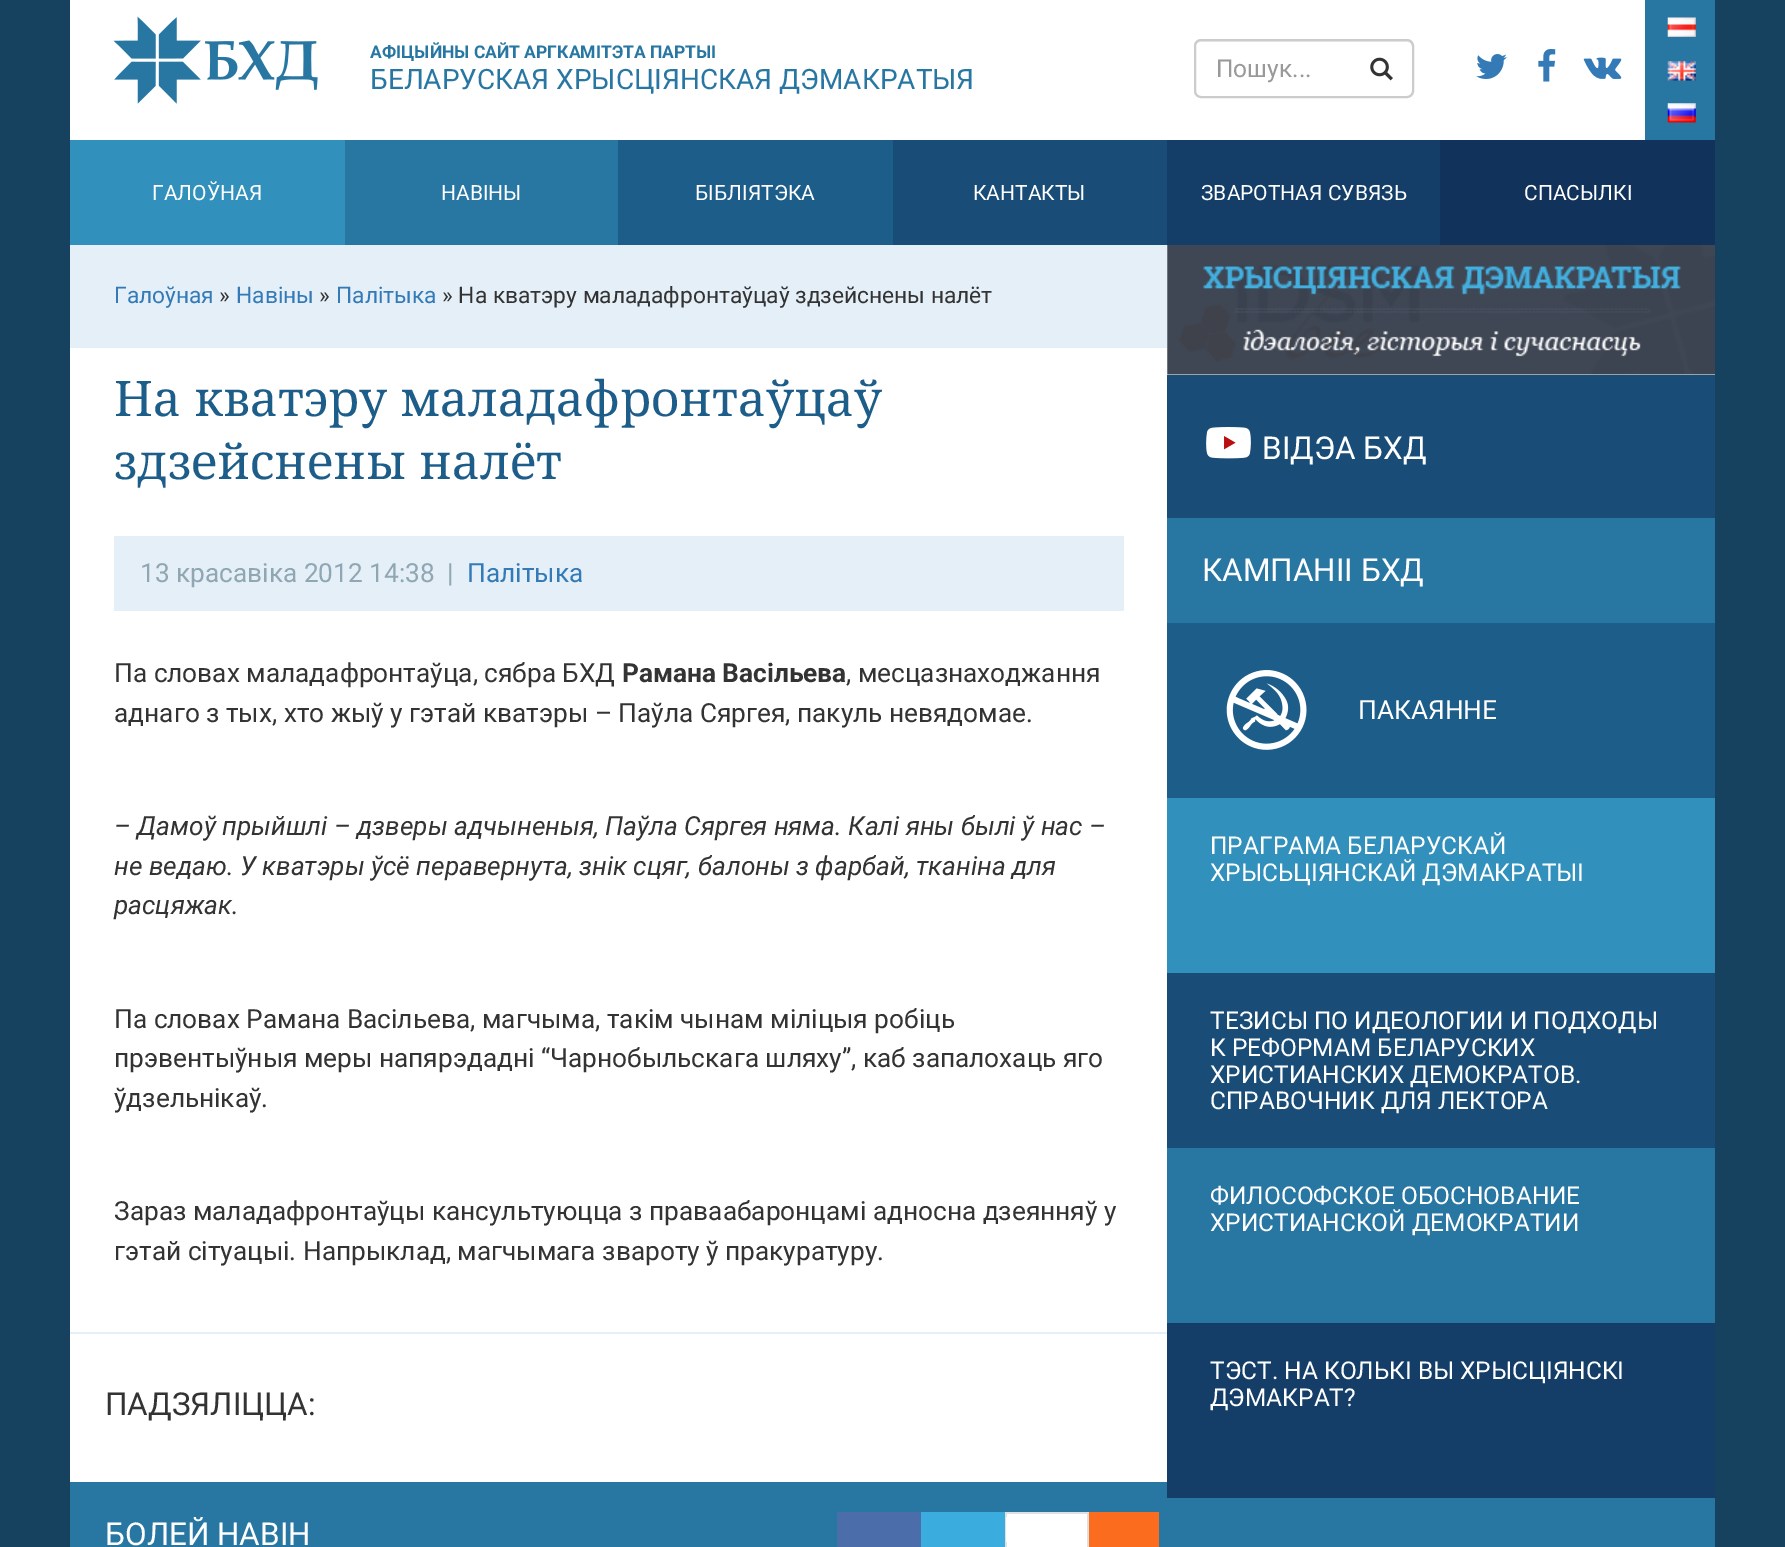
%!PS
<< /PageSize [1785 1547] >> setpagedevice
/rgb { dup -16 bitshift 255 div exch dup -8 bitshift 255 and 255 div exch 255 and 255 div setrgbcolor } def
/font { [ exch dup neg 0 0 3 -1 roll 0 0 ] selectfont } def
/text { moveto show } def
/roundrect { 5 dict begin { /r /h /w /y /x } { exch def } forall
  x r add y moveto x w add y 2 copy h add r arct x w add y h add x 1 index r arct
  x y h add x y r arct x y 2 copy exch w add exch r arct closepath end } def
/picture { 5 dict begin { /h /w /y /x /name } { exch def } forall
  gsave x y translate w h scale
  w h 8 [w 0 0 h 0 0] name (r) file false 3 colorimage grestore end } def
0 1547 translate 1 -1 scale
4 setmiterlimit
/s1 { /Roboto-Bold 17.5 font 16#2877A3 rgb } def
/s2 { /Roboto-Regular 28 font 16#2877A3 rgb } def
/s3 { /Roboto-Regular 24.5 font 16#999999 rgb } def
/s4 { /Roboto-Regular 21 font 16#FFFFFF rgb } def
/s5 { /Roboto-Regular 22.75 font 16#337AB7 rgb } def
/s6 { /Roboto-Regular 22.75 font 16#333333 rgb } def
/s7 { /NotoSerif-Regular 49 font 16#1D5D89 rgb } def
/s8 { /Roboto-Regular 26.25 font 16#8FA6B3 rgb } def
/s9 { /Roboto-Regular 26.25 font 16#337AB7 rgb } def
/s10 { /Roboto-Regular 26.25 font 16#333333 rgb } def
/s11 { /Roboto-Bold 26.25 font 16#333333 rgb } def
/s12 { /Roboto-Italic 26.25 font 16#333333 rgb } def
/s13 { /Roboto-Regular 31.5 font 16#333333 rgb } def
/s14 { /Roboto-Regular 31.5 font 16#FFFFFF rgb } def
/s15 { /Roboto-Regular 26.25 font 16#FFFFFF rgb } def
/s16 { /Roboto-Regular 24.5 font 16#FFFFFF rgb } def
16#164260 rgb
0 0 1785 1547 rectfill
16#FFFFFF rgb
70 0 1575 140 rectfill
(pic1.raw) 113 16 205 88 picture
s1
(АФІЦЫЙНЫ САЙТ АРГКАМІТЭТА ПАРТЫІ) 370 58 text
s2
(БЕЛАРУСКАЯ ХРЫСЦІЯНСКАЯ ДЭМАКРАТЫЯ) 370 89 text
16#ECECEC rgb
1200 42 moveto 1407 42 lineto 1410 42 1412 44 1412 47 curveto 1412 45 lineto 1412 42 1410 40 1407 40 curveto 1200 40 lineto 1197 40 1195 42 1195 45 curveto 1195 47 lineto 1195 44 1198 42 1200 42 curveto closepath fill
16#CCCCCC rgb
2 setlinewidth
1195 40 218 57 6 roundrect stroke
s3
(Пошук...) 1216 77 text
(pic2.raw) 1370 57 23 24 picture
(pic3.raw) 1476 54 31 25 picture
(pic4.raw) 1538 49 18 33 picture
(pic5.raw) 1583 57 39 22 picture
16#2877A3 rgb
1645 0 70 140 rectfill
(pic6.raw) 1667 17 29 20 picture
(pic7.raw) 1667 61 29 20 picture
(pic8.raw) 1667 103 29 20 picture
16#3191BC rgb
70 140 275 105 rectfill
s4
(ГАЛОЎНАЯ) 152 200 text
16#2877A3 rgb
345 140 273 105 rectfill
s4
(НАВІНЫ) 441 200 text
16#1D5D89 rgb
618 140 275 105 rectfill
s4
(БІБЛІЯТЭКА) 695 200 text
16#194D77 rgb
893 140 274 105 rectfill
s4
(КАНТАКТЫ) 973 200 text
16#143E68 rgb
1167 140 273 105 rectfill
s4
(ЗВАРОТНАЯ СУВЯЗЬ) 1201 200 text
16#10325B rgb
1440 140 275 105 rectfill
s4
(СПАСЫЛКІ) 1524 200 text
70 348 1097 1134 rectfill
16#E5EFF7 rgb
70 245 1097 103 rectfill
s5
(Галоўная) 114 303 text
s6
(») 219 303 text
s5
(Навіны) 236 303 text
s6
(») 319 303 text
s5
(Палітыка) 336 303 text
s6
(» На кватэру маладафронтаўцаў здзейснены налёт) 442 303 text
s7
(На кватэру маладафронтаўцаў) 114 416 text
(здзейснены налёт) 114 479 text
16#E5EFF7 rgb
114 536 1010 75 rectfill
s8
(13 красавіка 2012 14:38  |) 140 582 text
s9
(Палітыка) 467 582 text
s10
(Па словах маладафронтаўца, сябра БХД) 114 682 text
s11
(Рамана Васільева) 622 682 text
s10
(, месцазнаходжання) 846 682 text
(аднаго з тых, хто жыў у гэтай кватэры – Паўла Сяргея, пакуль невядомае.) 114 722 text
s12
(– Дамоў прыйшлі – дзверы адчыненыя, Паўла Сяргея няма. Калі яны былі ў нас –) 114 835 text
(не ведаю. У кватэры ўсё перавернута, знік сцяг, балоны з фарбай, тканіна для) 114 875 text
(расцяжак.) 114 914 text
s10
(Па словах Рамана Васільева, магчыма, такім чынам міліцыя робіць) 114 1028 text
(прэвентыўныя меры напярэдадні “Чарнобыльскага шляху”, каб запалохаць яго) 114 1067 text
(ўдзельнікаў.) 114 1107 text
(Зараз маладафронтаўцы кансультуюцца з праваабаронцамі адносна дзеянняў у) 114 1220 text
(гэтай сітуацыі. Напрыклад, магчымага звароту ў пракуратуру.) 114 1260 text
16#E5EFF7 rgb
70 1332 1097 2 rectfill
s13
(ПАДЗЯЛІЦЦА:) 105 1415 text
16#2877A3 rgb
70 1482 1097 65 rectfill
16#4B6DAA rgb
837 1512 84 35 rectfill
16#3AACDE rgb
921 1512 84 35 rectfill
16#FFFFFF rgb
1007 1514 80 33 rectfill
16#E0E0E0 rgb
1005 1512 84 2 rectfill
1087 1512 2 35 rectfill
1005 1512 2 35 rectfill
16#FFFFFF rgb
1006 1517 1 25 rectfill
16#FB6C1E rgb
1089 1512 70 35 rectfill
s14
(БОЛЕЙ НАВІН) 105 1545 text
1167 245 548 130 rectfill
(pic9.raw) 1167 245 548 130 picture
16#194D77 rgb
1167 375 548 143 rectfill
(pic10.raw) 1206 427 45 32 picture
s14
(ВІДЭА БХД) 1262 459 text
16#2877A3 rgb
1167 518 548 105 rectfill
s14
(КАМПАНІІ БХД) 1202 581 text
16#1D5D89 rgb
1167 623 548 175 rectfill
(pic11.raw) 1226 670 81 80 picture
s15
(ПАКАЯННЕ) 1358 719 text
16#3191BC rgb
1167 798 548 175 rectfill
s16
(ПРАГРАМА БЕЛАРУСКАЙ) 1210 854 text
(ХРЫСЬЦІЯНСКАЙ ДЭМАКРАТЫІ) 1210 881 text
16#194D77 rgb
1167 973 548 175 rectfill
s16
(ТЕЗИСЫ ПО ИДЕОЛОГИИ И ПОДХОДЫ) 1210 1029 text
(К РЕФОРМАМ БЕЛАРУСКИХ) 1210 1056 text
(ХРИСТИАНСКИХ ДЕМОКРАТОВ.) 1210 1083 text
(СПРАВОЧНИК ДЛЯ ЛЕКТОРА) 1210 1109 text
16#2877A3 rgb
1167 1148 548 175 rectfill
s16
(ФИЛОСОФСКОЕ ОБОСНОВАНИЕ) 1210 1204 text
(ХРИСТИАНСКОЙ ДЕМОКРАТИИ) 1210 1231 text
16#143E68 rgb
1167 1323 548 175 rectfill
s16
(ТЭСТ. НА КОЛЬКІ ВЫ ХРЫСЦІЯНСКІ) 1210 1379 text
(ДЭМАКРАТ?) 1210 1406 text
16#2877A3 rgb
1167 1498 548 49 rectfill
showpage
